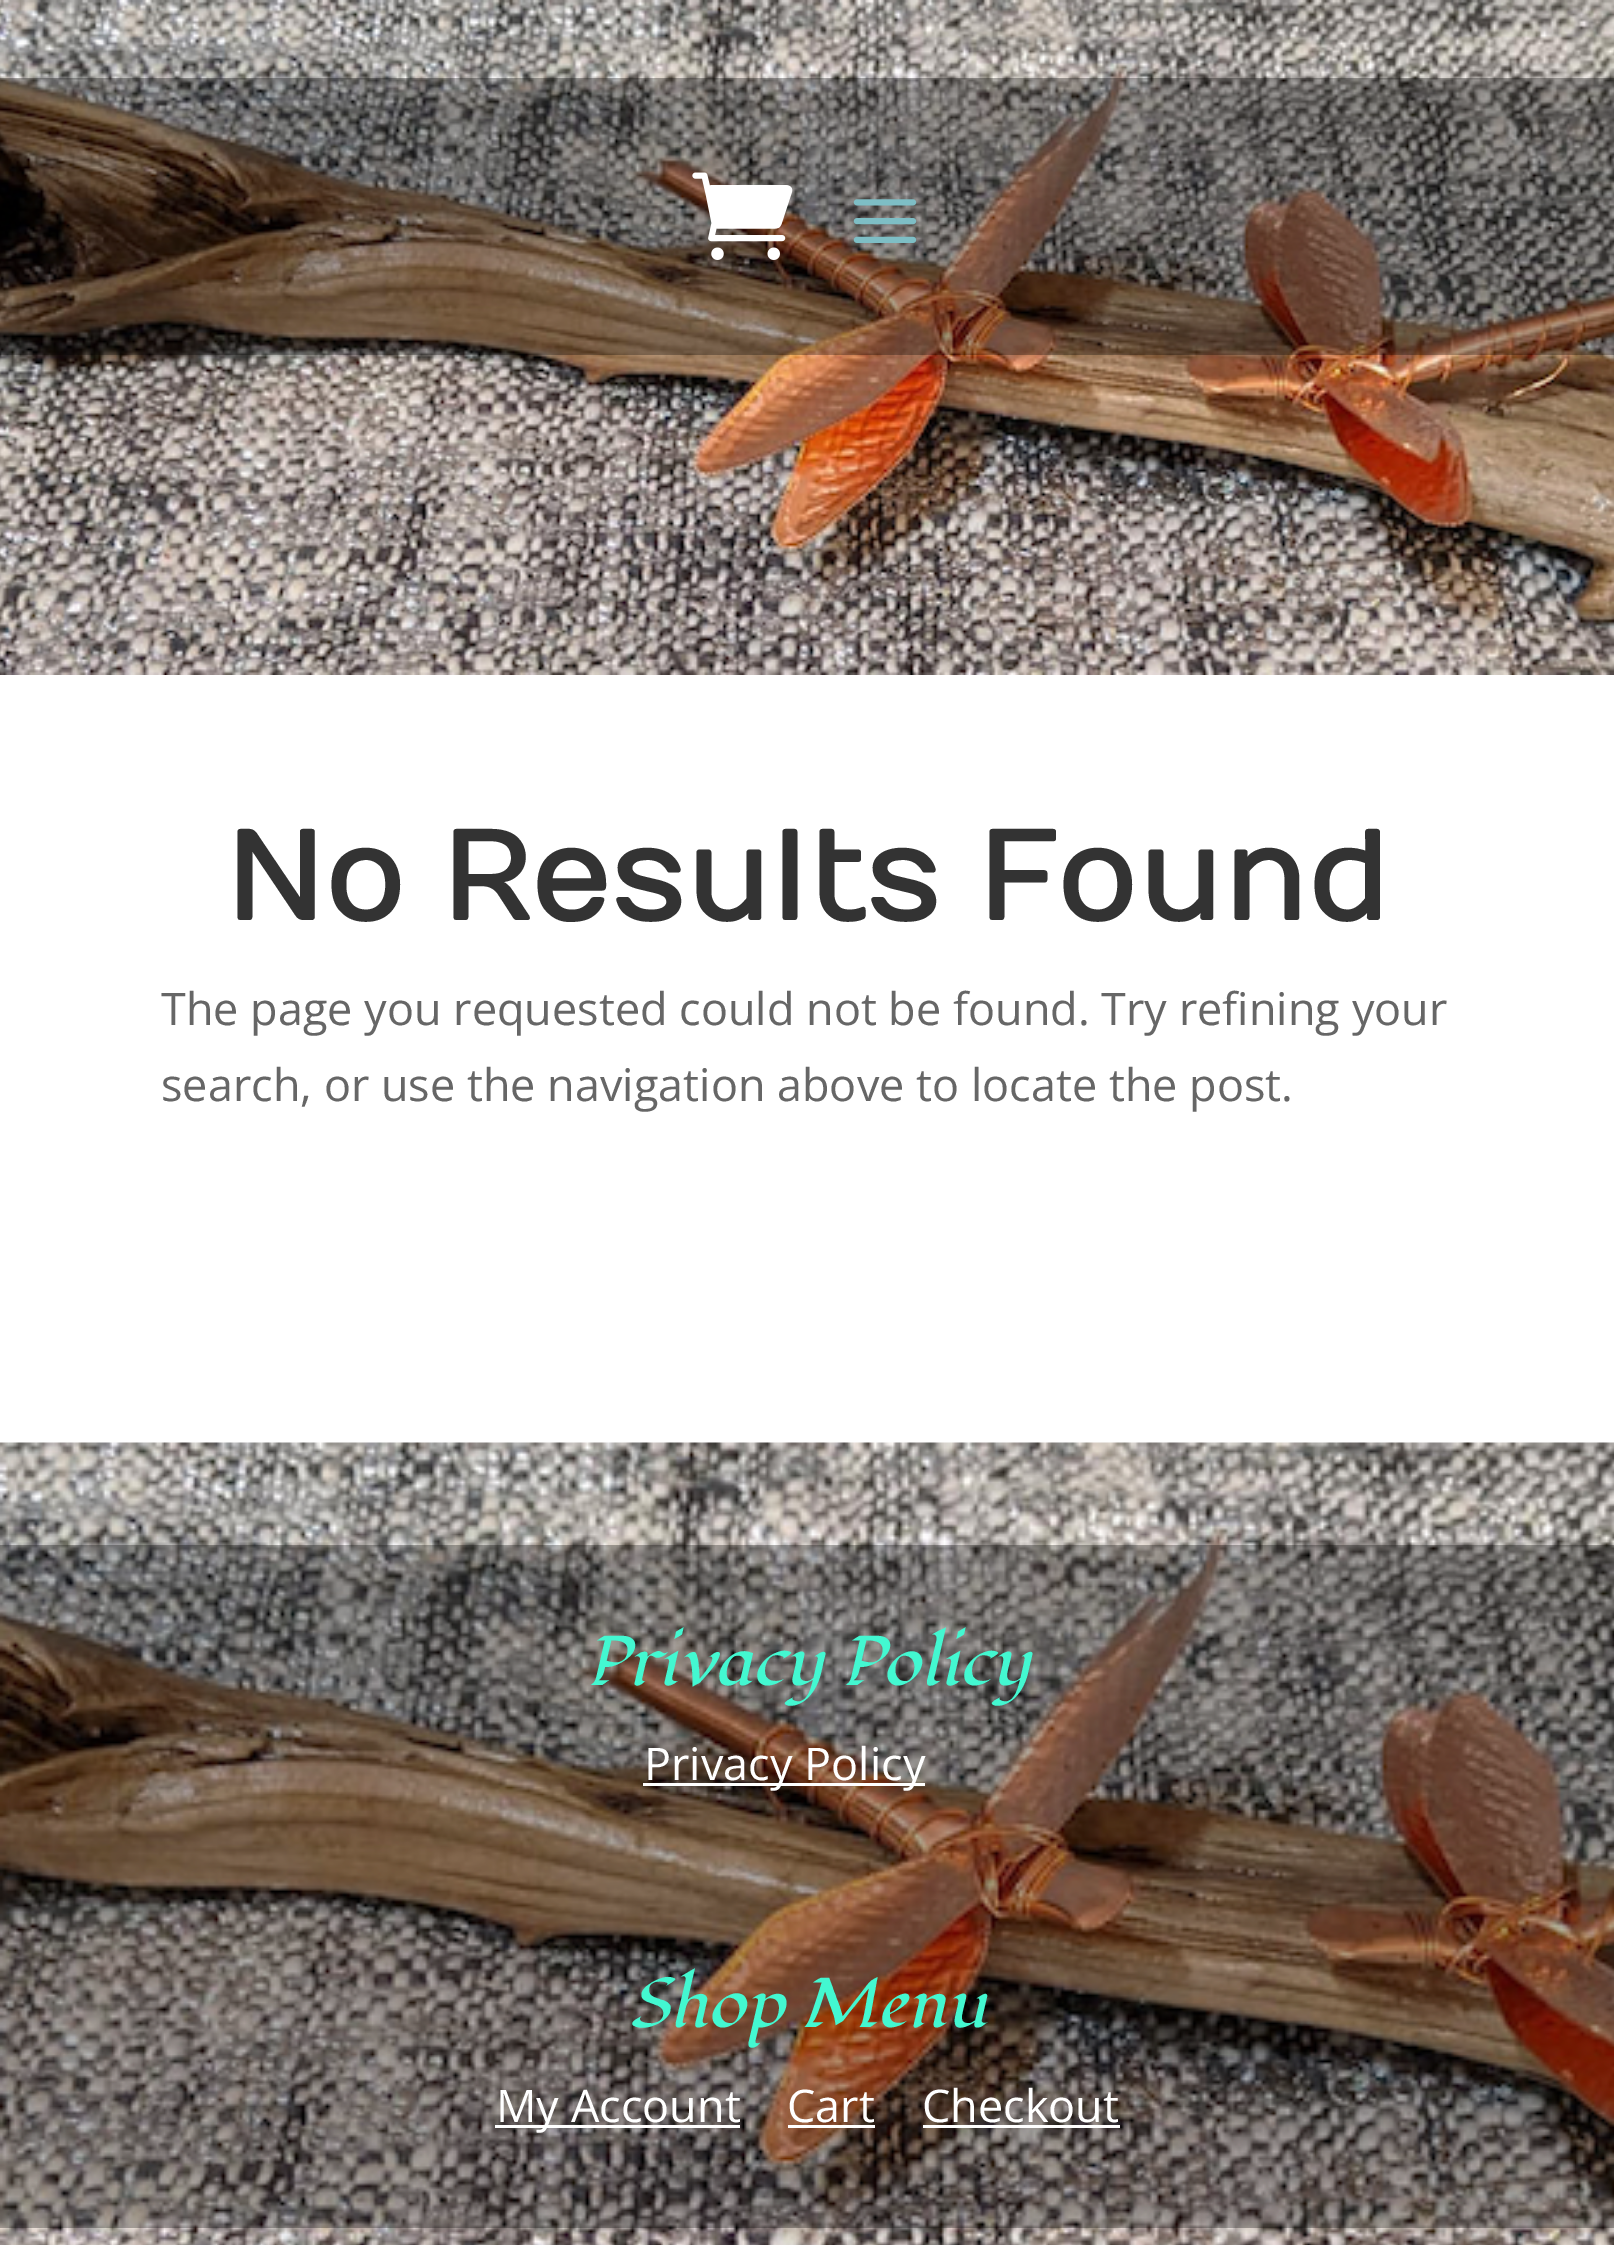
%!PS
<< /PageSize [1614 2245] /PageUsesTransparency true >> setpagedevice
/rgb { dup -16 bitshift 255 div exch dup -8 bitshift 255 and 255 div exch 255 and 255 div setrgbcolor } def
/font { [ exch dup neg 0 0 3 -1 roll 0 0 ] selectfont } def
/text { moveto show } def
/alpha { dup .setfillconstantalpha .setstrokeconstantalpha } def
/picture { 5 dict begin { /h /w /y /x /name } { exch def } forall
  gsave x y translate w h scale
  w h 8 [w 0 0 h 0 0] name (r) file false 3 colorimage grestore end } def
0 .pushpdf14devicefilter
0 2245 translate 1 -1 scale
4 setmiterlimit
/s1 { /Numans-Bold 125 font 16#333333 rgb } def
/s2 { /OpenSans-Regular 45 font 16#666666 rgb } def
/s3 { /Fondamento-Italic 70 font 16#43F8D1 rgb } def
/s4 { /OpenSans-Regular 45 font 16#FFFFFF rgb } def
16#FFFFFF rgb
0 0 1614 2245 rectfill
(pic1.raw) 0 0 1614 675 picture
0.31 alpha
16#000000 rgb
0 78 1614 277 rectfill
1 alpha
(pic2.raw) 692 172 101 88 picture
(pic3.raw) 853 199 64 44 picture
s1
(No Results Found) 225 920 text
s2
(The page you requested could not be found. Try refining your) 161 1025 text
(search, or use the navigation above to locate the post.) 161 1101 text
(pic4.raw) 0 1442 1614 803 picture
0.3 alpha
16#000000 rgb
0 1545 1614 343 rectfill
1 alpha
s3
(Privacy Policy) 585 1685 text
16#FFFFFF rgb
643 1783 282 3 rectfill
s4
(Privacy Policy) 644 1780 text
0.3 alpha
16#000000 rgb
0 1888 1614 340 rectfill
1 alpha
s3
(Shop Menu) 629 2027 text
16#FFFFFF rgb
495 2125 245 3 rectfill
s4
(My Account) 496 2122 text
(Cart) 787 2122 text
788 2125 87 3 rectfill
(Checkout) 922 2122 text
923 2125 197 3 rectfill
.poppdf14devicefilter showpage
